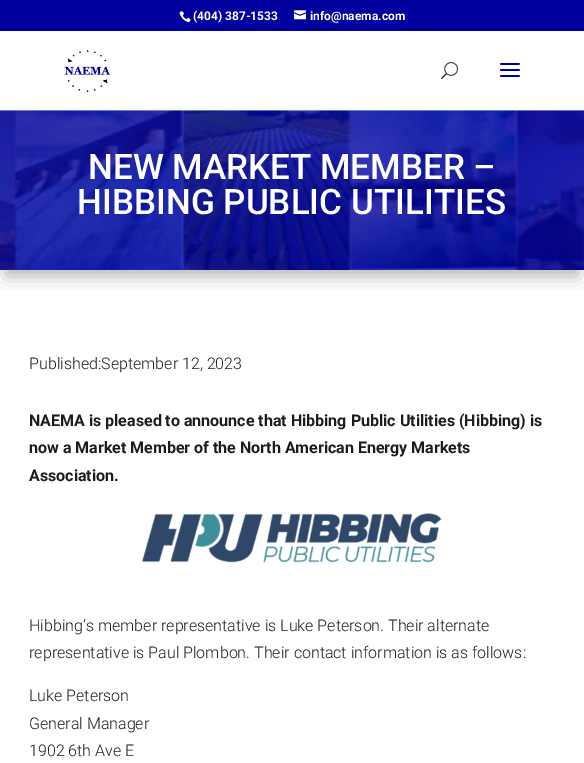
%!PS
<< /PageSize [584 763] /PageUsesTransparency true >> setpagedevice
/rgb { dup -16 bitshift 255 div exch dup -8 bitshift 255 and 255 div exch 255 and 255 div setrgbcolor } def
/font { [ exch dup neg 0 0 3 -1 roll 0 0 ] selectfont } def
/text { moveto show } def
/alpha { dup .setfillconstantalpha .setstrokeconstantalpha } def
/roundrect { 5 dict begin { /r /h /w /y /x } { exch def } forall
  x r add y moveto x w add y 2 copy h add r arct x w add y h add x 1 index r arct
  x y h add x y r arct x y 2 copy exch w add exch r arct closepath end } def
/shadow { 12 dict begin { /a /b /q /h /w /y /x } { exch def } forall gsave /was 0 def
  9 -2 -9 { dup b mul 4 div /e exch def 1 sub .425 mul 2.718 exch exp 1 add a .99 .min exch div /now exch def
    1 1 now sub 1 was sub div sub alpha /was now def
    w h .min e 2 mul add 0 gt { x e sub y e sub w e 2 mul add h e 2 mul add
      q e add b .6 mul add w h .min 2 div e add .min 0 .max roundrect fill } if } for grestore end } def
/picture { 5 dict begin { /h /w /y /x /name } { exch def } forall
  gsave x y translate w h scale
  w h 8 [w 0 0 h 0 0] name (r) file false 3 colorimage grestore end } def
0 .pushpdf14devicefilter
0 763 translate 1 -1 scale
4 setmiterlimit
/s1 { /Roboto-Bold 12 font 16#FFFFFF rgb } def
/s2 { /Roboto-Medium 35 font 16#FFFFFF rgb } def
/s3 { /Roboto-Light 16 font 16#1C1C1C rgb } def
/s4 { /Roboto-Bold 16 font 16#1C1C1C rgb } def
16#FFFFFF rgb
0 0 584 763 rectfill
16#00009F rgb
0 0 584 31 rectfill
(pic1.raw) 179 11 12 12 picture
s1
(\(404\) 387-1533) 193 20 text
(pic2.raw) 294 10 12 10 picture
(info@naema.com) 310 20 text
gsave
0 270 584 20 rectclip
16#000000 rgb
6 128 572 148 0 9 0.3 shadow
grestore
(pic6.raw) 0 110 584 160 picture
0.4 alpha
0 110 584 1 rectfill
1 alpha
(pic3.raw) 64 50 47 43 picture
(pic4.raw) 441 62 17 18 picture
(pic5.raw) 500 63 20 14 picture
s2
(NEW MARKET MEMBER –) 88 179 text
(HIBBING PUBLIC UTILITIES) 77 214 text
s3
(Published:September 12, 2023) 29 369 text
s4
(NAEMA is pleased to announce that Hibbing Public Utilities \(Hibbing\) is) 29 426 text
(now a Market Member of the North American Energy Markets) 29 453 text
(Association.) 29 481 text
(pic7.raw) 142 513 300 50 picture
s3
(Hibbing’s member representative is Luke Peterson. Their alternate) 29 631 text
(representative is Paul Plombon. Their contact information is as follows:) 29 658 text
(Luke Peterson) 29 701 text
(General Manager) 29 729 text
(1902 6th Ave E) 29 756 text
.poppdf14devicefilter showpage
